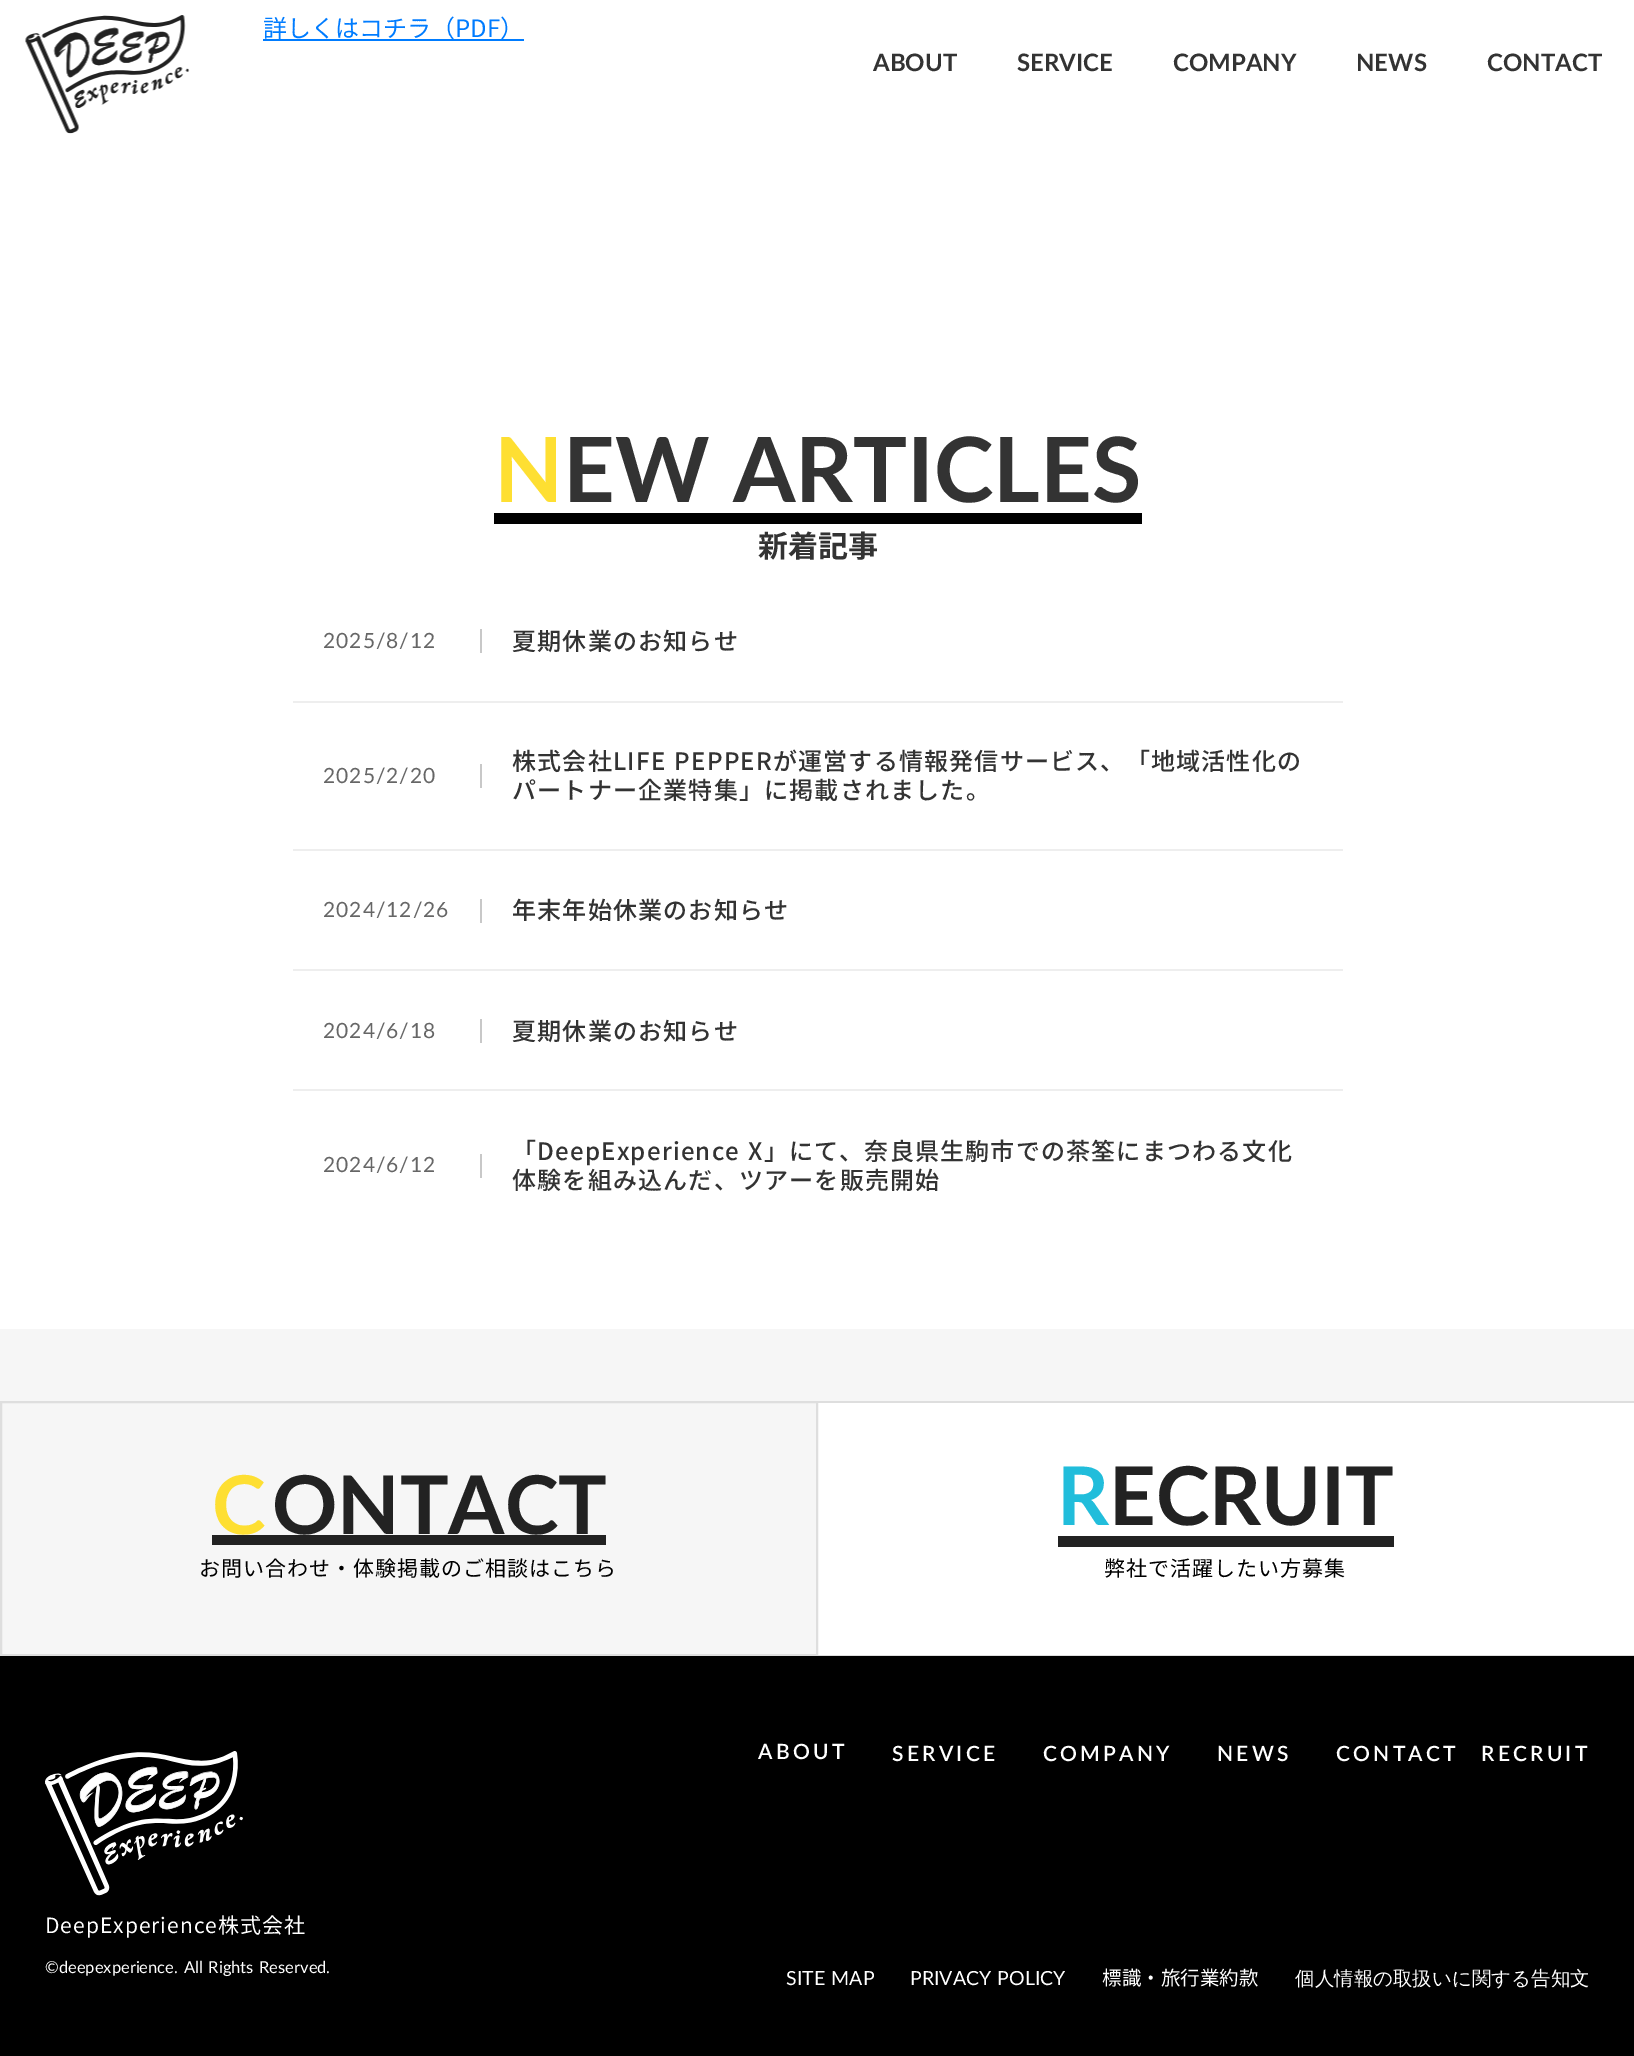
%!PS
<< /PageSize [1634 2056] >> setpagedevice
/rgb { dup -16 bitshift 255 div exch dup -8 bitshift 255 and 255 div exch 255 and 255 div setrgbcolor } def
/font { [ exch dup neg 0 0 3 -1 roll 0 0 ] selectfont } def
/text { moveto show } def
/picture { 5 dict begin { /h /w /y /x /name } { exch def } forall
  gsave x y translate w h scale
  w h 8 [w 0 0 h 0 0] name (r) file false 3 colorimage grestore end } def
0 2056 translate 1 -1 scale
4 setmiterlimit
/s1 { /NotoSansJP-Regular 24 font 16#007CFF rgb } def
/s2 { /Lato-Bold 90 font 16#FEDF32 rgb } def
/s3 { /NotoSansJP-Bold 30 font 16#333333 rgb } def
/s4 { /Lato-Bold 24 font 16#333333 rgb } def
/s5 { /Lato-Bold 81 font 16#222222 rgb } def
/s6 { /Lato-Bold 81 font 16#21BDDB rgb } def
/s7 { /NotoSansJP-Regular 19.5 font 16#FFFFFF rgb } def
/s8 { /WenQuanYiZenHei-Medium 19.5 font 16#FFFFFF rgb } def
16#FFFFFF rgb
0 0 1634 2056 rectfill
16#F6F6F6 rgb
0 1329 1634 72 rectfill
16#007CFF rgb
263 39 261 2 rectfill
s1
(詳しくはコチラ（PDF）) 263 37 text
16#000000 rgb
494 513 648 11 rectfill
s2
(N) 494 502 text
16#333333 rgb
563 502 moveto 1.5 0 32 (EW ARTICLES) widthshow
s3
(新着記事) 758 557 text
/Lato-Regular 21 font
16#666666 rgb
323 648 moveto 1 0 (2025/8/12) ashow
16#C8C8C8 rgb
480 629 2 24 rectfill
/NotoSansJP-Medium 24 font
16#333333 rgb
512 650 moveto 1.2 0 (夏期休業のお知らせ) ashow
16#EEEEEE rgb
293 701 1050 2 rectfill
/Lato-Regular 21 font
16#666666 rgb
323 783 moveto 1 0 (2025/2/20) ashow
16#C8C8C8 rgb
480 764 2 24 rectfill
/NotoSansJP-Medium 24 font
16#333333 rgb
512 770 moveto 1.5 0 32 1.2 0 (株式会社LIFE PEPPERが運営する情報発信サービス、「地域活性化の) awidthshow
512 799 moveto 1.2 0 (パートナー企業特集」に掲載されました。) ashow
16#EEEEEE rgb
293 849 1050 2 rectfill
/Lato-Regular 21 font
16#666666 rgb
323 917 moveto 1 0 (2024/12/26) ashow
16#C8C8C8 rgb
480 899 2 24 rectfill
/NotoSansJP-Medium 24 font
16#333333 rgb
512 919 moveto 1.2 0 (年末年始休業のお知らせ) ashow
16#EEEEEE rgb
293 969 1050 2 rectfill
/Lato-Regular 21 font
16#666666 rgb
323 1038 moveto 1 0 (2024/6/18) ashow
16#C8C8C8 rgb
480 1019 2 24 rectfill
/NotoSansJP-Medium 24 font
16#333333 rgb
512 1040 moveto 1.2 0 (夏期休業のお知らせ) ashow
16#EEEEEE rgb
293 1089 1050 2 rectfill
/Lato-Regular 21 font
16#666666 rgb
323 1172 moveto 1 0 (2024/6/12) ashow
16#C8C8C8 rgb
480 1154 2 24 rectfill
/NotoSansJP-Medium 24 font
16#333333 rgb
512 1160 moveto 1.5 0 32 1.2 0 (「DeepExperience X」にて、奈良県生駒市での茶筌にまつわる文化) awidthshow
512 1189 moveto 1.2 0 (体験を組み込んだ、ツアーを販売開始) ashow
(pic1.raw) 25 15 165 119 picture
s4
(ABOUT) 873 71 text
(SERVICE) 1017 71 text
(COMPANY) 1173 71 text
(NEWS) 1356 71 text
(CONTACT) 1487 71 text
16#F6F6F6 rgb
1 1402 moveto 817 1402 lineto 817 1655 lineto 1 1655 lineto closepath gsave fill grestore
16#DEDEDE rgb
2 setlinewidth
stroke
16#222222 rgb
212 1535 394 10 rectfill
/Lato-Bold 81 font
16#FEDF32 rgb
212 1534 moveto 4 0 (C) ashow
s5
(ONTACT) 272 1534 text
/NotoSansJP-Regular 21 font
16#000000 rgb
199 1576 moveto 1 0 (お問い合わせ・体験掲載のご相談はこちら) ashow
16#DEDEDE rgb
818 1401 816 2 rectfill
818 1655 816 1 rectfill
16#222222 rgb
1058 1536 336 11 rectfill
s6
(R) 1057 1525 text
s5
(ECRUIT) 1109 1525 text
/NotoSansJP-Regular 21 font
16#000000 rgb
1104 1576 moveto 1 0 (弊社で活躍したい方募集) ashow
0 1656 1634 400 rectfill
(pic2.raw) 45 1751 198 145 picture
16#FFFFFF rgb
45 1933 moveto 1 0 (DeepExperience株式会社) ashow
/Lato-Regular 16.5 font
45 1973 moveto 1.5 0 32 (©deepexperience. All Rights Reserved.) widthshow
/Lato-SemiBold 21 font
758 1759 moveto 3.25 0 (ABOUT) ashow
892 1761 moveto 3.25 0 (SERVICE) ashow
1043 1761 moveto 3.25 0 (COMPANY) ashow
1217 1761 moveto 3.25 0 (NEWS) ashow
1336 1761 moveto 3.25 0 (CONTACT) ashow
1481 1761 moveto 3.25 0 (RECRUIT) ashow
/Lato-Regular 19.5 font
786 1985 moveto 1.5 0 32 (SITE MAP) widthshow
910 1985 moveto 1.5 0 32 (PRIVACY POLICY) widthshow
s7
(標識・旅行業約款) 1102 1985 text
s8
(個人情報の取扱いに関する告知文) 1295 1985 text
showpage
